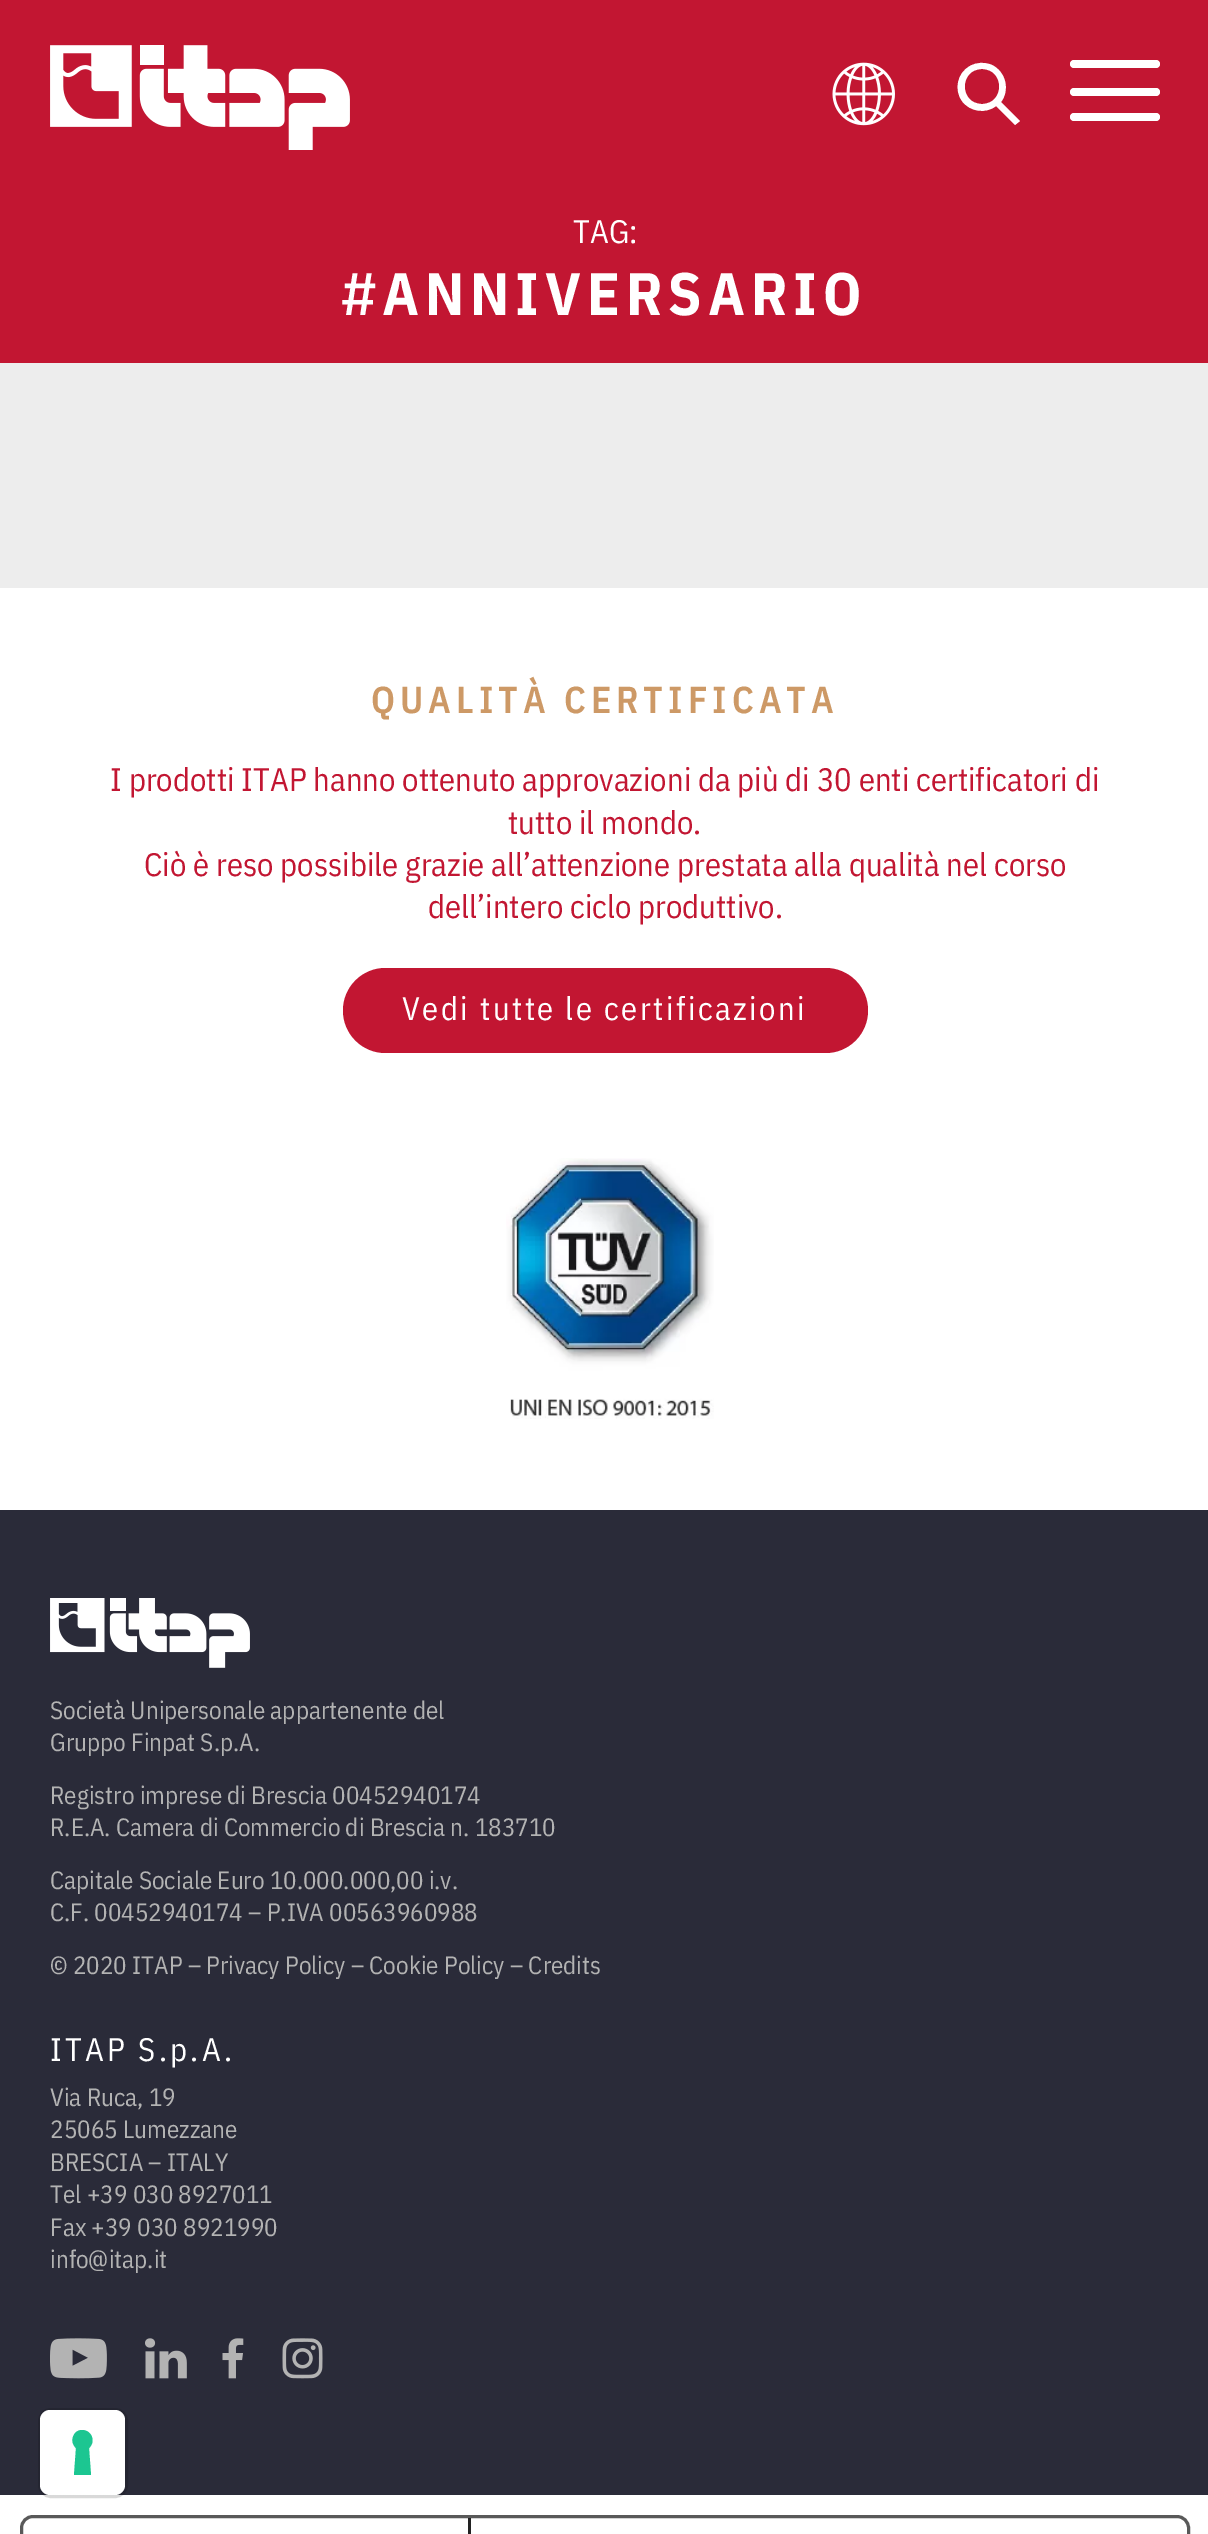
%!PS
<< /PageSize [1208 2534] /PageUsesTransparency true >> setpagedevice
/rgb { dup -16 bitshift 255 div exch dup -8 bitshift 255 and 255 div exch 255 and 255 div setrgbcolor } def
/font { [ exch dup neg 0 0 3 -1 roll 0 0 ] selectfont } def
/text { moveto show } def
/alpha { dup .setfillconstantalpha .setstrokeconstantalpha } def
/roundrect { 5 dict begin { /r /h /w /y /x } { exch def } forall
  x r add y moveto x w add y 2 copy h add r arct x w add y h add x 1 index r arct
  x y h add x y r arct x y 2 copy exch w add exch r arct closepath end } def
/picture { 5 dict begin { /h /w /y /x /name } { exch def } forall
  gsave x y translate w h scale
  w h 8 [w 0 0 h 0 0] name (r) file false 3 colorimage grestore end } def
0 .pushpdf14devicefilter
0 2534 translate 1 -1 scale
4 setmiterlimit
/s1 { /IBMPlexSansCondensed-Regular 32.5 font 16#FFFFFF rgb } def
/s2 { /IBMPlexSansCondensed-Regular 32.5 font 16#C21632 rgb } def
/s3 { /IBMPlexSansCondensed-Regular 25 font 16#B3B3B3 rgb } def
16#FFFFFF rgb
0 0 1208 2534 rectfill
16#C21632 rgb
0 0 1208 363 rectfill
(pic1.raw) 50 45 300 105 picture
(pic2.raw) 832 62 63 64 picture
16#FFFFFF rgb
1015 125 moveto 996 106 lineto 986 114 970 112 962 101 curveto 954 90 957 73 970 66 curveto 977 62 985 62 992 65 curveto 1006 72 1010 90 1001 102 curveto 1020 121 lineto closepath 982 69 moveto 959 69 959 104 982 104 curveto 1005 104 1005 69 982 69 curveto closepath fill
1070 60 90 8 4 roundrect fill
1070 88 90 8 4 roundrect fill
1070 113 90 8 4 roundrect fill
16#EDEDED rgb
0 363 1208 225 rectfill
s1
(TAG:) 573 243 text
/IBMPlexSansCondensed-Bold 60 font
342 315 moveto 6 0 (#ANNIVERSARIO) ashow
/IBMPlexSansCondensed-SemiBold 37.5 font
16#CD9966 rgb
371 713 moveto 5 0 (QUALITÀ CERTIFICATA) ashow
s2
(I prodotti ITAP hanno ottenuto approvazioni da più di 30 enti certificatori di) 110 791 text
(tutto il mondo.) 508 834 text
(Ciò è reso possibile grazie all’attenzione prestata alla qualità nel corso) 144 876 text
(dell’intero ciclo produttivo.) 428 918 text
343 968 525 85 42.5 roundrect fill
16#FFFFFF rgb
402 1020 moveto 2.5 0 (Vedi tutte le certificazioni) ashow
(pic3.raw) 506 1158 208 261 picture
16#2A2B39 rgb
0 1510 1208 985 rectfill
(pic4.raw) 50 1598 200 70 picture
s3
(Società Unipersonale appartenente del) 50 1719 text
(Gruppo Finpat S.p.A.) 50 1751 text
(Registro imprese di Brescia 00452940174) 50 1804 text
(R.E.A. Camera di Commercio di Brescia n. 183710) 50 1836 text
(Capitale Sociale Euro 10.000.000,00 i.v.) 50 1889 text
(C.F. 00452940174 – P.IVA 00563960988) 50 1921 text
(© 2020 ITAP – Privacy Policy – Cookie Policy – Credits) 50 1974 text
/IBMPlexSansCondensed-Regular 32.5 font
16#FFFFFF rgb
50 2061 moveto 3.25 0 (ITAP S.p.A.) ashow
s3
(Via Ruca, 19) 50 2106 text
(25065 Lumezzane) 50 2138 text
(BRESCIA – ITALY) 50 2171 text
(Tel +39 030 8927011) 50 2203 text
(Fax +39 030 8921990) 50 2236 text
(info@itap.it) 50 2268 text
(pic5.raw) 50 2338 57 41 picture
(pic6.raw) 145 2338 42 41 picture
(pic7.raw) 222 2338 22 41 picture
(pic8.raw) 282 2338 41 41 picture
0.15 alpha
16#000000 rgb
3 setlinewidth
39.5 2409.5 87 87 11.5 roundrect stroke
1 alpha
16#FFFFFF rgb
40 2410 85 85 10 roundrect fill
16#1CC691 rgb
82 2430 moveto 92 2430 96 2442 89 2448 curveto 91 2475 lineto 74 2475 lineto 76 2448 lineto 69 2442 73 2430 82 2430 curveto closepath eofill
16#595959 rgb
21.5 2516.5 1167 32 11.5 roundrect stroke
16#222222 rgb
468 2518 3 16 rectfill
.poppdf14devicefilter showpage
